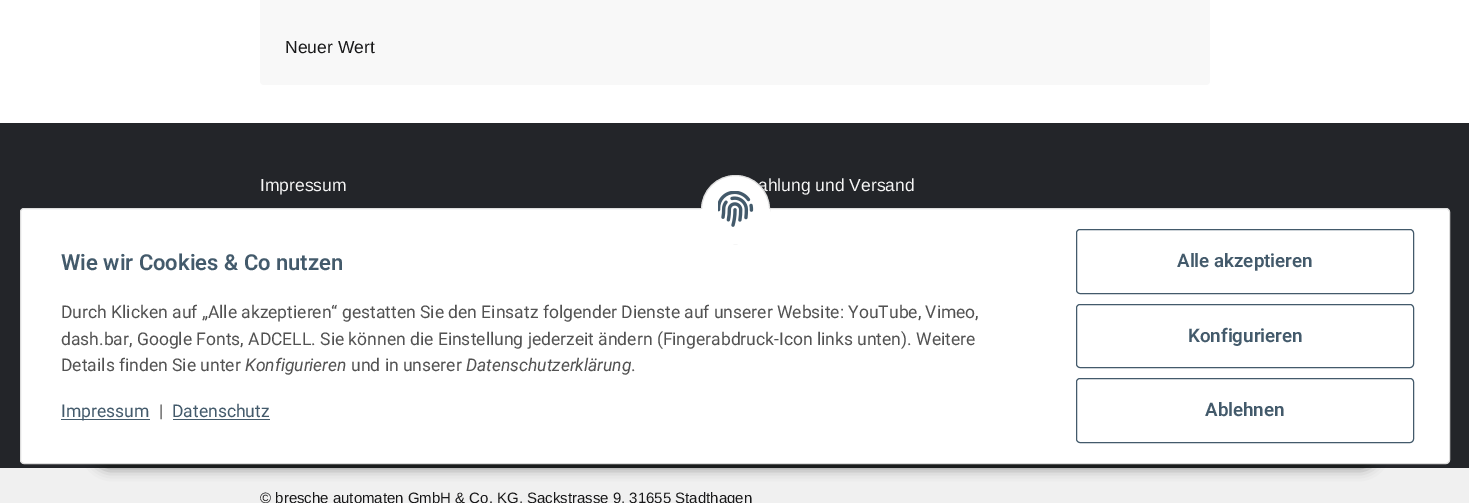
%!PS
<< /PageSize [1469 503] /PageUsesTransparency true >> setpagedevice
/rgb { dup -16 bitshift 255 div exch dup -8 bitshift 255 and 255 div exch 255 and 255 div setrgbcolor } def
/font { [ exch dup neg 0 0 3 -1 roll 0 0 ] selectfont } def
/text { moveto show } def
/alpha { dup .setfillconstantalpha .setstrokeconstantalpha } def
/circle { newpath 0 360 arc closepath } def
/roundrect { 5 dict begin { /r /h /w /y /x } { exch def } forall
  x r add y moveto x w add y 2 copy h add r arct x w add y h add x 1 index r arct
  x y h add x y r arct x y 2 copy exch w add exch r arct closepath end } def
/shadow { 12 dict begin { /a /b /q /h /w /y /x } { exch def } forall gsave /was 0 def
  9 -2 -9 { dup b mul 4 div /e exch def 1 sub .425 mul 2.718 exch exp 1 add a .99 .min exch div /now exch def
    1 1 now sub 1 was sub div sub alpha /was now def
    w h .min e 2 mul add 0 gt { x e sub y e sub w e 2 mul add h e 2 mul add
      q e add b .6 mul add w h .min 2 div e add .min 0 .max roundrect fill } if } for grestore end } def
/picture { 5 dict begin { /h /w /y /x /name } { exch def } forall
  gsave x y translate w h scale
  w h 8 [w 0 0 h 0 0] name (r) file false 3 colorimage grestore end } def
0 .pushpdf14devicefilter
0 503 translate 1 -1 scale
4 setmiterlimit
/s1 { /LiberationSans-Regular 17.5 font 16#181819 rgb } def
/s2 { /LiberationSans-Regular 17.5 font 16#F5F5F5 rgb } def
/s3 { /LiberationSans-Regular 15 font 16#181819 rgb } def
/s4 { /Roboto-SemiBold 22 font 16#435A6B rgb } def
/s5 { /Roboto-Regular 17.5 font 16#525252 rgb } def
/s6 { /Roboto-Italic 17.5 font 16#525252 rgb } def
/s7 { /Roboto-Regular 17.5 font 16#435A6B rgb } def
/s8 { /Roboto-SemiBold 18.75 font 16#435A6B rgb } def
16#FFFFFF rgb
0 0 1469 503 rectfill
16#F8F8F8 rgb
260 -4 950 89 4 roundrect fill
s1
(Neuer Wert) 285 53 text
16#232529 rgb
0 123 1469 345 rectfill
s2
(Impressum) 260 191 text
(ahlung und Versand) 758 191 text
16#F0F0F0 rgb
0 468 1469 35 rectfill
s3
(© bresche automaten GmbH & Co. KG, Sackstrasse 9, 31655 Stadthagen) 260 503 text
16#000000 rgb
93 428 1285 40 20 6 0.45 shadow
16#FFFFFF rgb
20.5 208.5 1429 255 3.5 roundrect gsave fill grestore
16#DDDDDD rgb
stroke
16#FFFFFF rgb
735.5 209.5 34 circle gsave fill grestore
16#DDDDDD rgb
stroke
16#FFFFFF rgb
701 209 69 35 rectfill
(pic1.raw) 718 191 36 36 picture
s4
(Wie wir Cookies & Co nutzen) 61 270 text
s5
(Durch Klicken auf „Alle akzeptieren“ gestatten Sie den Einsatz folgender Dienste auf unserer Website: YouTube, Vimeo,) 61 318 text
(dash.bar, Google Fonts, ADCELL. Sie können die Einstellung jederzeit ändern \(Fingerabdruck-Icon links unten\). Weitere) 61 345 text
(Details finden Sie unter) 61 371 text
s6
(Konfigurieren) 245 371 text
s5
(und in unserer) 351 371 text
s6
(Datenschutzerklärung) 466 371 text
s5
(.) 631 371 text
16#435A6B rgb
61 419 89 1 rectfill
(Impressum) 61 417 text
s5
(|) 159 417 text
s7
(Datenschutz) 172 417 text
173 419 97 1 rectfill
1076.5 229.5 337 64 3.5 roundrect stroke
s8
(Alle akzeptieren) 1177 267 text
1076.5 304.5 337 63 3.5 roundrect stroke
(Konfigurieren) 1188 342 text
1076.5 378.5 337 64 3.5 roundrect stroke
(Ablehnen) 1205 416 text
.poppdf14devicefilter showpage
